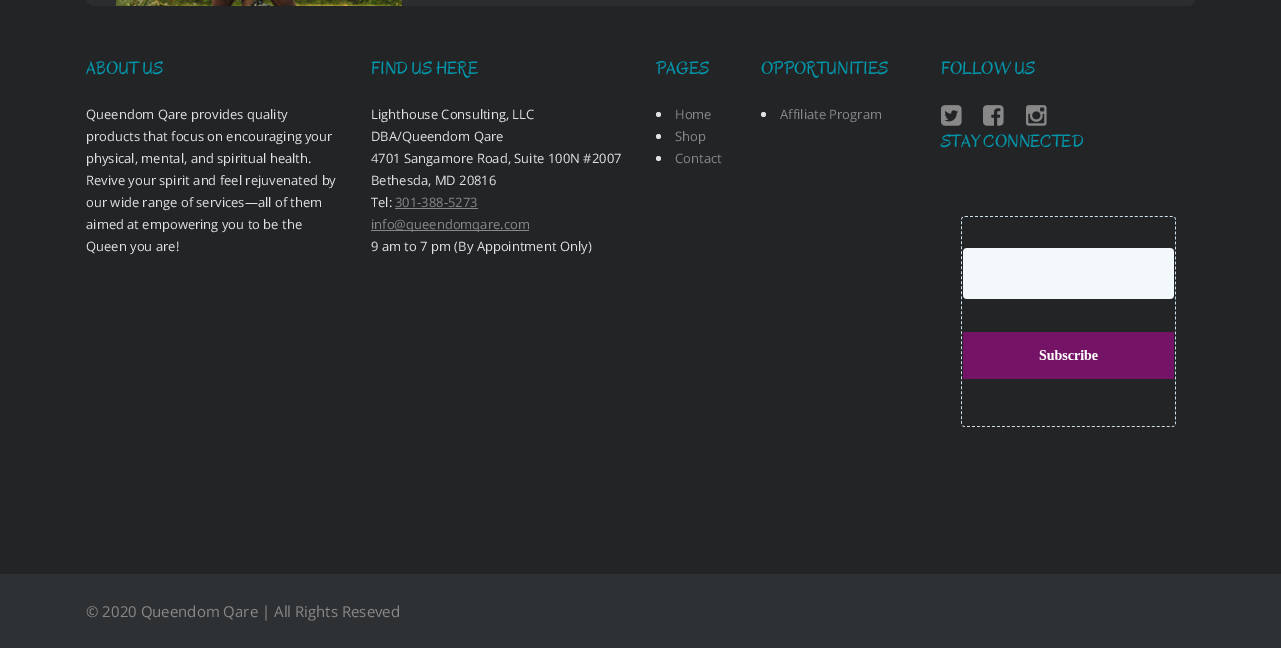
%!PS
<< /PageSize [1281 648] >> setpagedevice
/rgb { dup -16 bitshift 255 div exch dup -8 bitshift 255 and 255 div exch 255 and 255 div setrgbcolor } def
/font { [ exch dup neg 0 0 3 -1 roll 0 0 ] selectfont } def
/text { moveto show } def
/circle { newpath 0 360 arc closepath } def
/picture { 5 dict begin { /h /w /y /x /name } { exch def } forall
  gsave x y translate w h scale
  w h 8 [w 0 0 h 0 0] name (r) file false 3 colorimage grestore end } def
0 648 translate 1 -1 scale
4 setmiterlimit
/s1 { /Oregano-Regular 18 font 16#0496AA rgb } def
/s2 { /OpenSans-Regular 13 font 16#E1E2E4 rgb } def
/s3 { /OpenSans-Regular 13 font 16#888888 rgb } def
/s4 { /OpenSans-Regular 15 font 16#888888 rgb } def
16#222426 rgb
0 0 1281 648 rectfill
16#2B2D2F rgb
86 -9 moveto 1196 -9 lineto 1196 -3 lineto 1196 2 1192 6 1187 6 curveto 95 6 lineto 90 6 86 2 86 -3 curveto closepath fill
(pic1.raw) 116 0 286 6 picture
s1
(ABOUT US) 86 74 text
s2
(Queendom Qare provides quality) 86 119 text
(products that focus on encouraging your) 86 141 text
(physical, mental, and spiritual health.) 86 163 text
(Revive your spirit and feel rejuvenated by) 86 185 text
(our wide range of services—all of them) 86 207 text
(aimed at empowering you to be the) 86 229 text
(Queen you are!) 86 251 text
s1
(FIND US HERE) 371 74 text
s2
(Lighthouse Consulting, LLC) 371 119 text
(DBA/Queendom Qare) 371 141 text
(4701 Sangamore Road, Suite 100N #2007) 371 163 text
(Bethesda, MD 20816) 371 185 text
(Tel:) 371 207 text
s3
(301-388-5273) 395 207 text
395 208 83 1 rectfill
371 230 158 1 rectfill
(info@queendomqare.com) 371 229 text
s2
(9 am to 7 pm \(By Appointment Only\)) 371 251 text
s1
(PAGES) 656 74 text
16#E1E2E4 rgb
658.5 114.5 2.5 circle fill
s3
(Home) 675 119 text
16#E1E2E4 rgb
658.5 136.5 2.5 circle fill
s3
(Shop) 675 141 text
16#E1E2E4 rgb
658.5 158.5 2.5 circle fill
s3
(Contact) 675 163 text
s1
(OPPORTUNITIES) 761 74 text
16#E1E2E4 rgb
763.5 114.5 2.5 circle fill
s3
(Affiliate Program) 780 119 text
s1
(FOLLOW US) 941 74 text
(pic2.raw) 941 105 21 21 picture
(pic3.raw) 983 105 21 21 picture
(pic4.raw) 1026 105 21 21 picture
(STAY CONNECTED) 941 147 text
(pic5.raw) 961 216 215 211 picture
16#2E3134 rgb
0 574 1281 74 rectfill
s4
(© 2020 Queendom Qare | All Rights Reseved) 86 617 text
showpage
